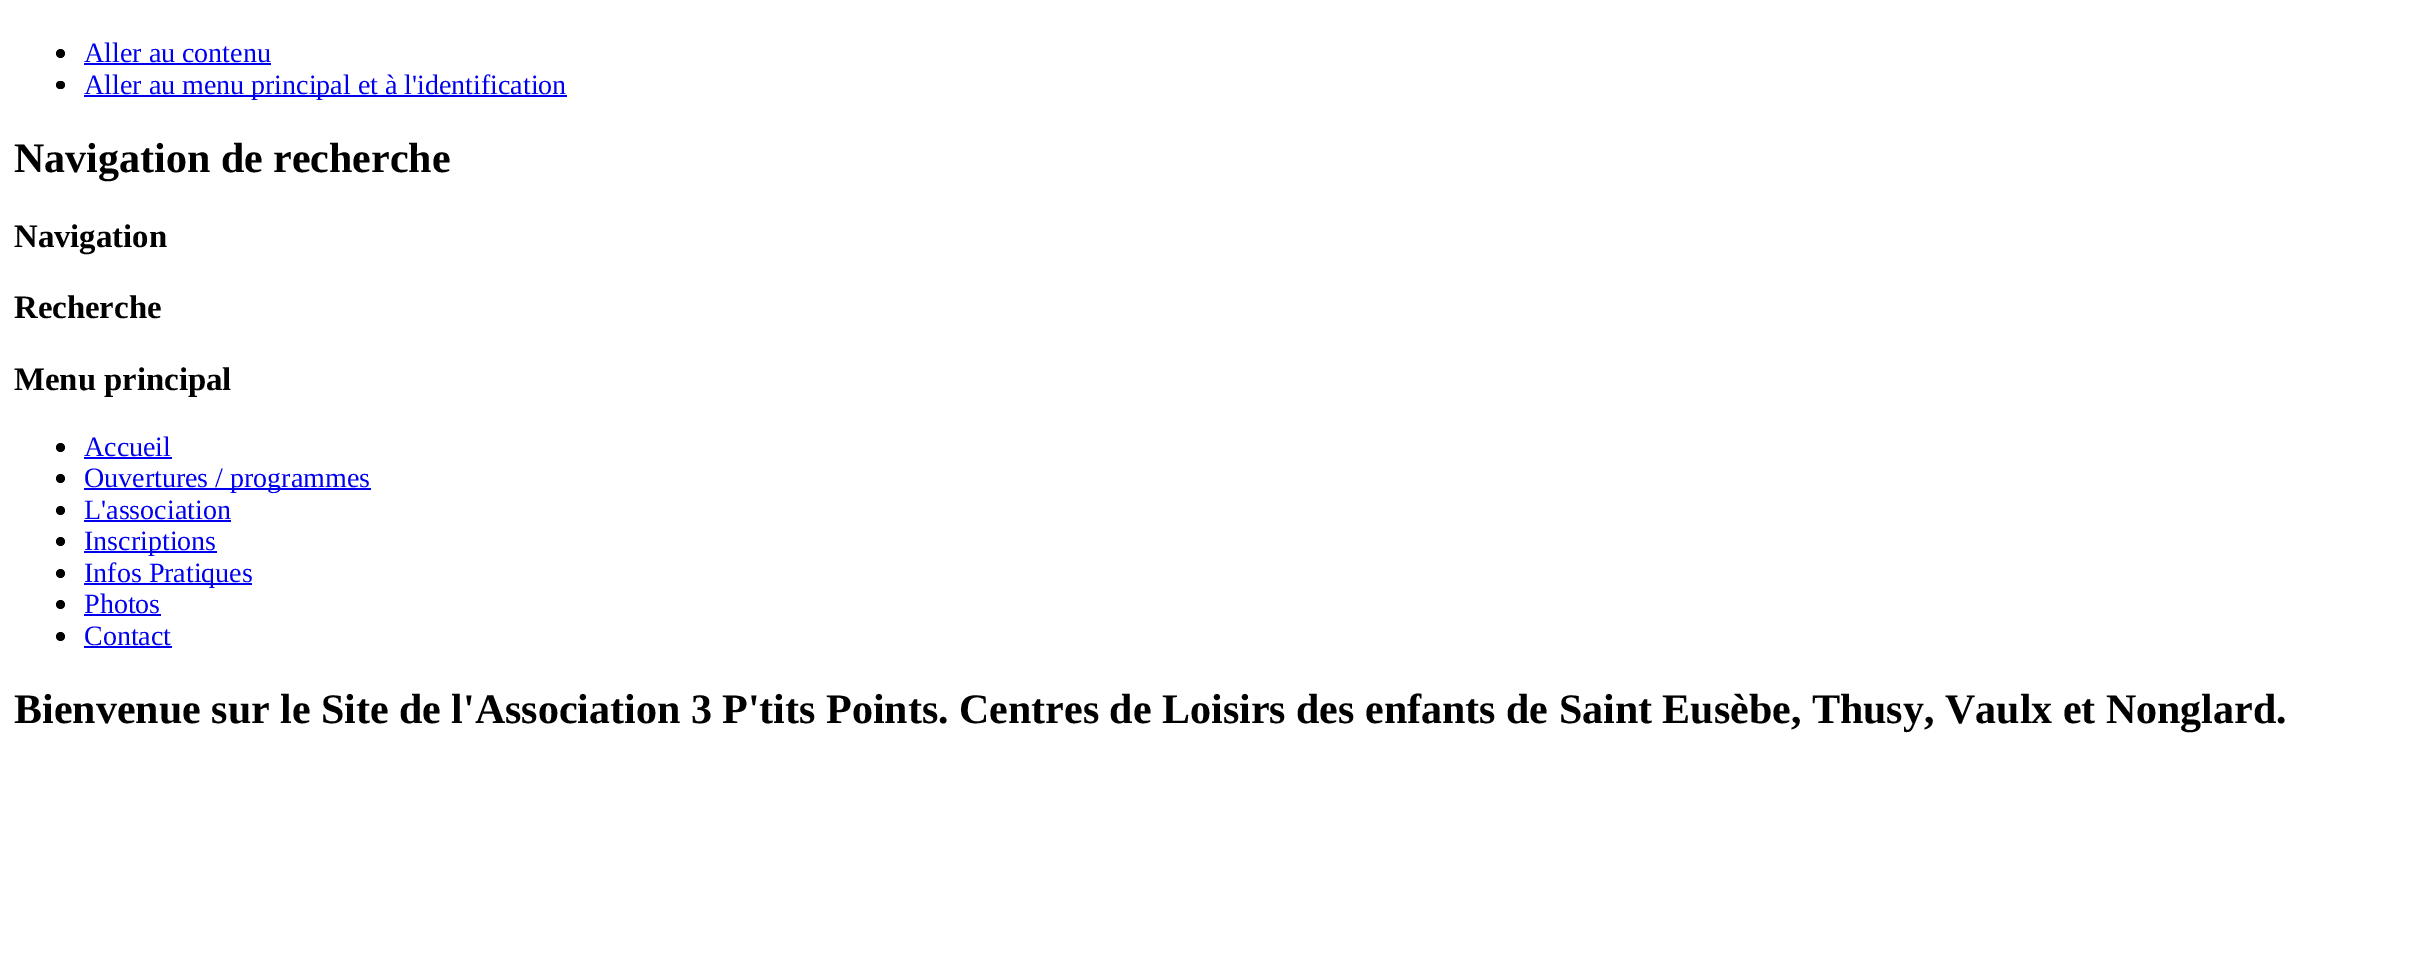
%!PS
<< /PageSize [2418 979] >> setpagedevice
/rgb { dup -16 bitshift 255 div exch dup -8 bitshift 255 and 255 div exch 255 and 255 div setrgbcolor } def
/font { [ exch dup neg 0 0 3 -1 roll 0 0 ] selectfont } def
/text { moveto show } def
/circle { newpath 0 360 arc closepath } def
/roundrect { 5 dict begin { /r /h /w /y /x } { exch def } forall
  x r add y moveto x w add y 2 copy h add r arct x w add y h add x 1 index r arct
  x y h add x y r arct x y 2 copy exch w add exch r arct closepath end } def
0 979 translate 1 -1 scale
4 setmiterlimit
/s1 { /LiberationSerif-Regular 28 font 16#0000EE rgb } def
/s2 { /LiberationSerif-Bold 42 font 16#000000 rgb } def
/s3 { /LiberationSerif-Bold 32.75 font 16#000000 rgb } def
16#FFFFFF rgb
0 0 2418 979 rectfill
16#000000 rgb
60.5 53.5 4.5 circle fill
s1
(Aller au contenu) 84 62 text
84 63 187 2 rectfill
16#000000 rgb
56 81 9 8 4 roundrect fill
16#0000EE rgb
84 95 483 2 rectfill
(Aller au menu principal et à l'identification) 84 94 text
s2
(Navigation de recherche) 14 172 text
s3
(Navigation) 14 247 text
(Recherche) 14 318 text
(Menu principal) 14 390 text
60.5 447.5 4.5 circle fill
s1
(Accueil) 84 456 text
84 457 88 2 rectfill
16#000000 rgb
60.5 478.5 4.5 circle fill
16#0000EE rgb
84 488 287 2 rectfill
(Ouvertures / programmes) 84 487 text
16#000000 rgb
60.5 510.5 4.5 circle fill
s1
(L'association) 84 519 text
84 520 147 2 rectfill
16#000000 rgb
60.5 541.5 4.5 circle fill
16#0000EE rgb
84 551 133 2 rectfill
(Inscriptions) 84 550 text
16#000000 rgb
60.5 573.5 4.5 circle fill
16#0000EE rgb
84 583 168 2 rectfill
(Infos Pratiques) 84 582 text
16#000000 rgb
60.5 604.5 4.5 circle fill
s1
(Photos) 84 613 text
84 614 77 2 rectfill
16#000000 rgb
60.5 636.5 4.5 circle fill
s1
(Contact) 84 645 text
84 646 88 2 rectfill
s2
(Bienvenue sur le Site de l'Association 3 P'tits Points. Centres de Loisirs des enfants de Saint Eusèbe, Thusy, Vaulx et Nonglard.) 14 723 text
showpage
